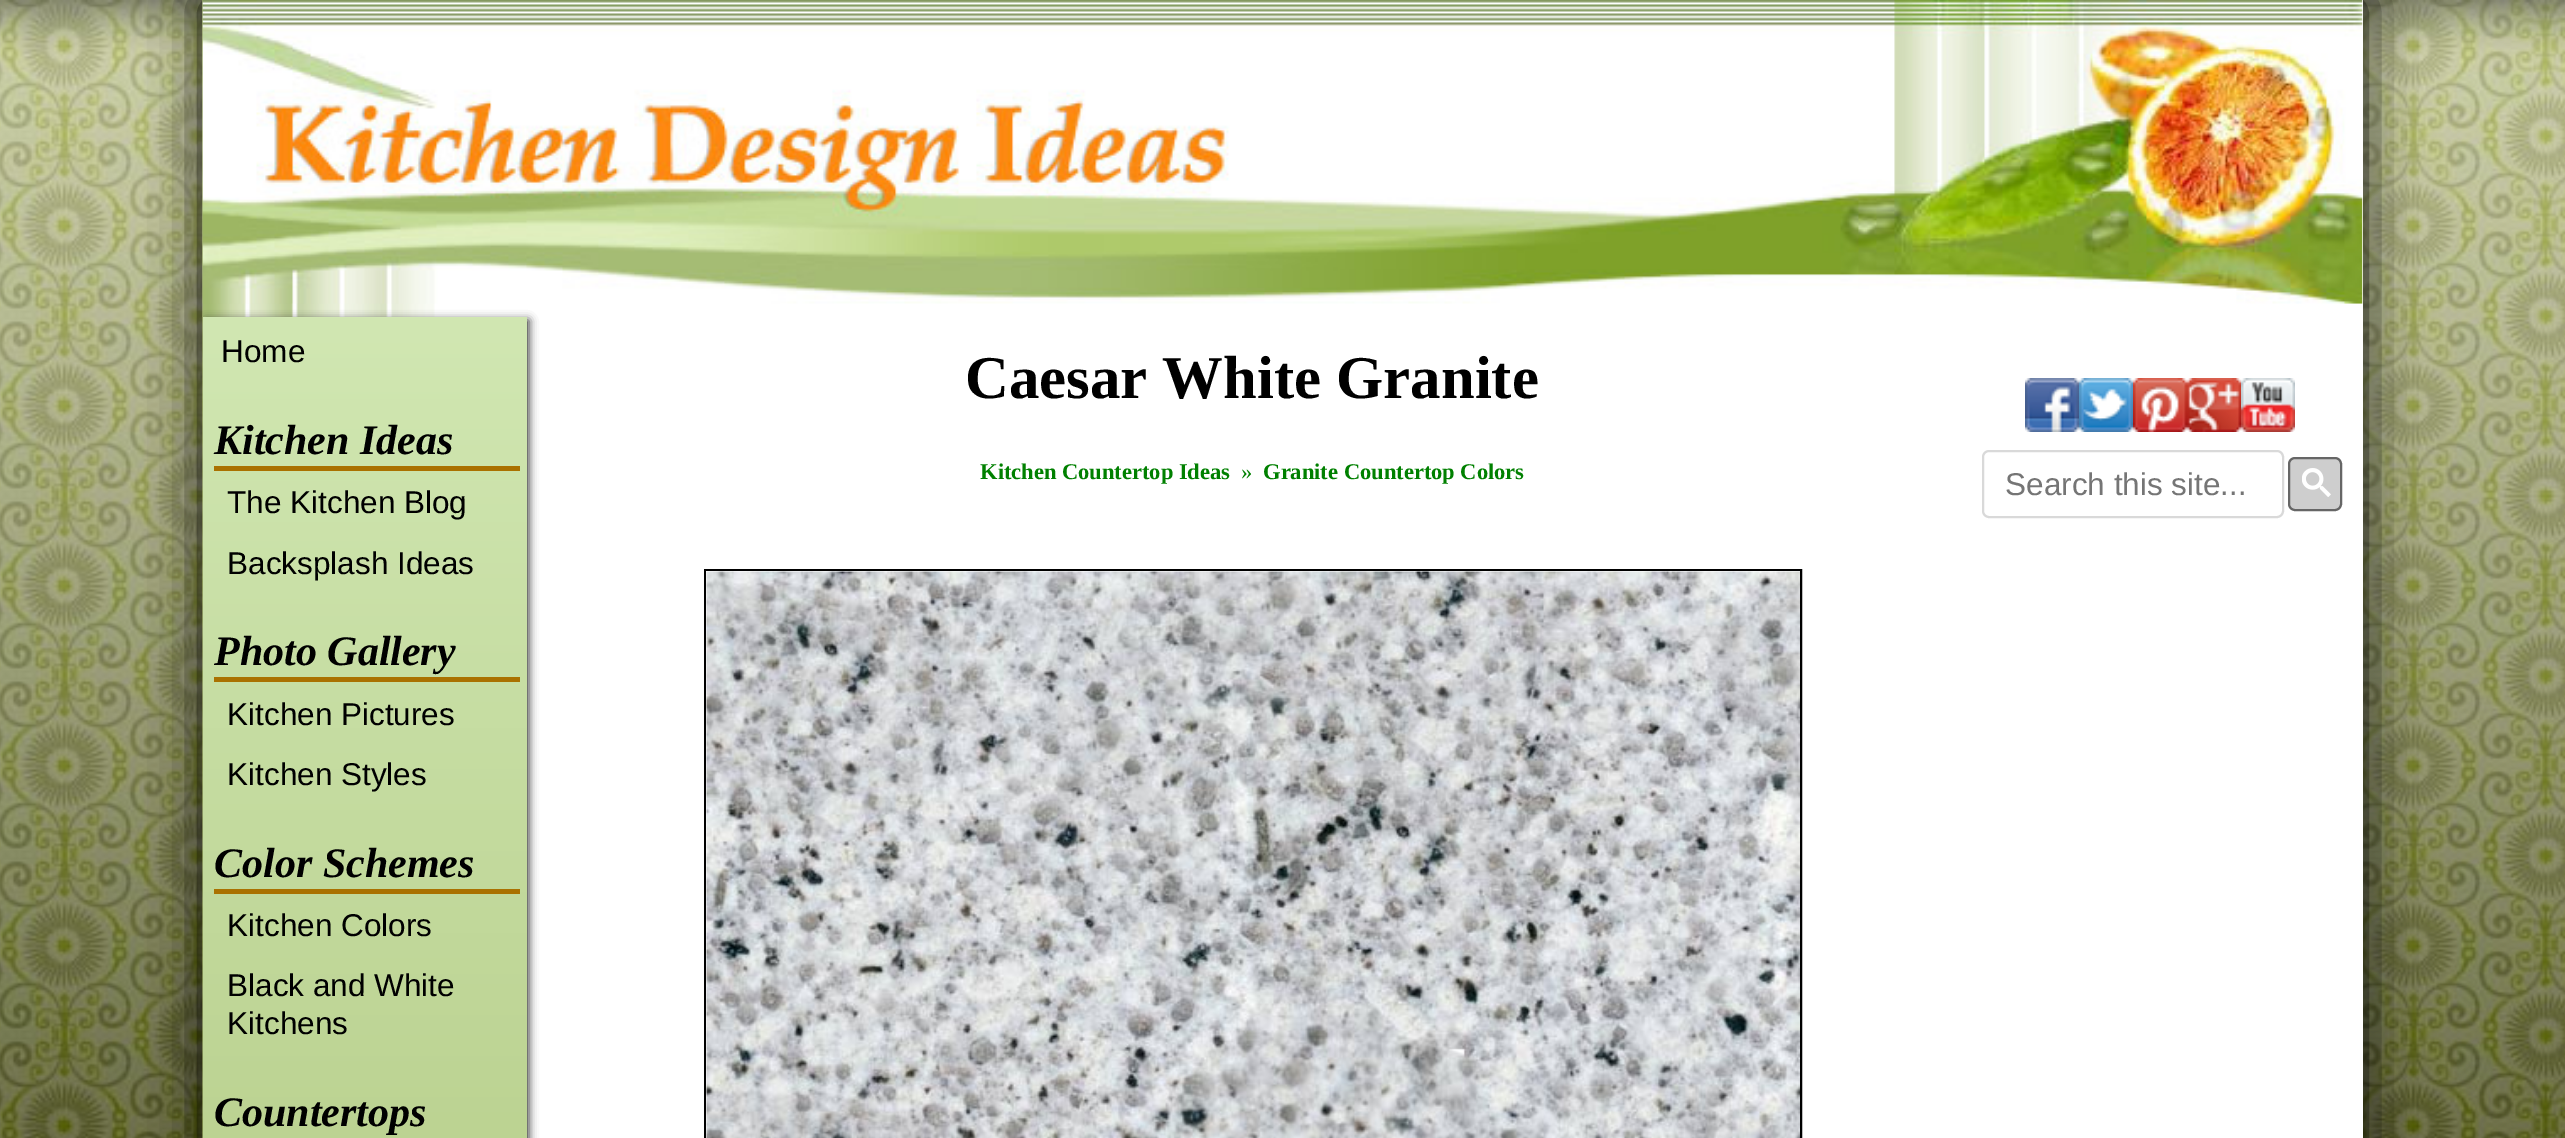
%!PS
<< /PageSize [2565 1138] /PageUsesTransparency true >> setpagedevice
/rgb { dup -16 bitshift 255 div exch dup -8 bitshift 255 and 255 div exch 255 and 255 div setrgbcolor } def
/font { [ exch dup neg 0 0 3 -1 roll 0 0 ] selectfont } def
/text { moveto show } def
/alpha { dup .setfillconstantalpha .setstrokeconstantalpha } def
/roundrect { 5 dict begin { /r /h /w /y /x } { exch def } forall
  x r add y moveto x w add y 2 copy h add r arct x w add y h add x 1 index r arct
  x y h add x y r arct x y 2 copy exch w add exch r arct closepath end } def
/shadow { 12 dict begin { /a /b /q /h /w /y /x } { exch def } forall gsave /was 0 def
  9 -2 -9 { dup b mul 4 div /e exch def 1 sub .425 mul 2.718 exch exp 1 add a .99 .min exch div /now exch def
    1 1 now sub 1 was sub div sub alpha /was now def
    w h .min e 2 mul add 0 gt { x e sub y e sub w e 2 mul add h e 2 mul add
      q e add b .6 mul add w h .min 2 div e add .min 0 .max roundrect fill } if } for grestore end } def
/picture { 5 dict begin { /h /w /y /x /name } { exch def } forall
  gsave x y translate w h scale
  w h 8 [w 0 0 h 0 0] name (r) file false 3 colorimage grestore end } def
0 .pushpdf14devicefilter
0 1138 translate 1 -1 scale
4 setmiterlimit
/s1 { /LiberationSans-Regular 31.5 font 16#000000 rgb } def
/s2 { /LiberationSerif-BoldItalic 42 font 16#000000 rgb } def
/s3 { /LiberationSerif-Bold 60.75 font 16#000000 rgb } def
/s4 { /LiberationSerif-Bold 22.5 font 16#008000 rgb } def
/s5 { /LiberationSerif-Regular 22.5 font 16#008000 rgb } def
/s6 { /LiberationSans-Regular 31.5 font 16#757575 rgb } def
16#FFFFFF rgb
0 0 2565 1138 rectfill
(pic1.raw) 0 0 2565 1138 picture
16#000000 rgb
203 0 2160 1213 0 25 1 shadow
16#FFFFFF rgb
435 0 1928 1138 rectfill
(pic2.raw) 202 0 233 1138 picture
(pic3.raw) 202 0 2161 304 picture
gsave
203 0 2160 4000 rectclip
16#333333 rgb
205 320 324 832 0 4.5 1 shadow
grestore
gsave 203 317 moveto 527 317 lineto 527 1138 lineto 203 1138 lineto closepath clip newpath
<< /ShadingType 2 /ColorSpace /DeviceRGB /Coords [203 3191 203 317] /Extend [true true] /Function << /FunctionType 2 /Domain [0 1] /C0 [0.525 0.631 0.259] /C1 [0.82 0.906 0.698] /N 1 >> >> shfill grestore
s1
(Home) 221 362 text
16#AA7100 rgb
214 466 306 5 rectfill
s2
(Kitchen Ideas) 214 454 text
s1
(The Kitchen Blog) 227 513 text
(Backsplash Ideas) 227 574 text
16#AA7100 rgb
214 677 306 5 rectfill
s2
(Photo Gallery) 214 665 text
s1
(Kitchen Pictures) 227 725 text
(Kitchen Styles) 227 785 text
16#AA7100 rgb
214 889 306 5 rectfill
s2
(Color Schemes) 214 877 text
s1
(Kitchen Colors) 227 936 text
(Black and White) 227 996 text
(Kitchens) 227 1034 text
s2
(Countertops) 214 1126 text
s3
(Caesar White Granite) 965 398 text
s4
(Kitchen Countertop Ideas) 980 479 text
s5
(») 1241 479 text
s4
(Granite Countertop Colors) 1263 479 text
16#000000 rgb
2 setlinewidth
705 570 1096 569 rectstroke
(pic4.raw) 706 571 1094 567 picture
(pic5.raw) 2025 378 54 54 picture
(pic6.raw) 2079 378 54 54 picture
(pic7.raw) 2133 378 54 54 picture
(pic8.raw) 2187 378 54 54 picture
(pic9.raw) 2241 378 54 54 picture
16#D9D9D9 rgb
1983 451 300 66 6 roundrect stroke
s6
(Search this site...) 2005 495 text
16#CECECE rgb
2289 458 52 52 6 roundrect gsave fill grestore
16#666666 rgb
stroke
(pic10.raw) 2302 468 29 29 picture
.poppdf14devicefilter showpage
